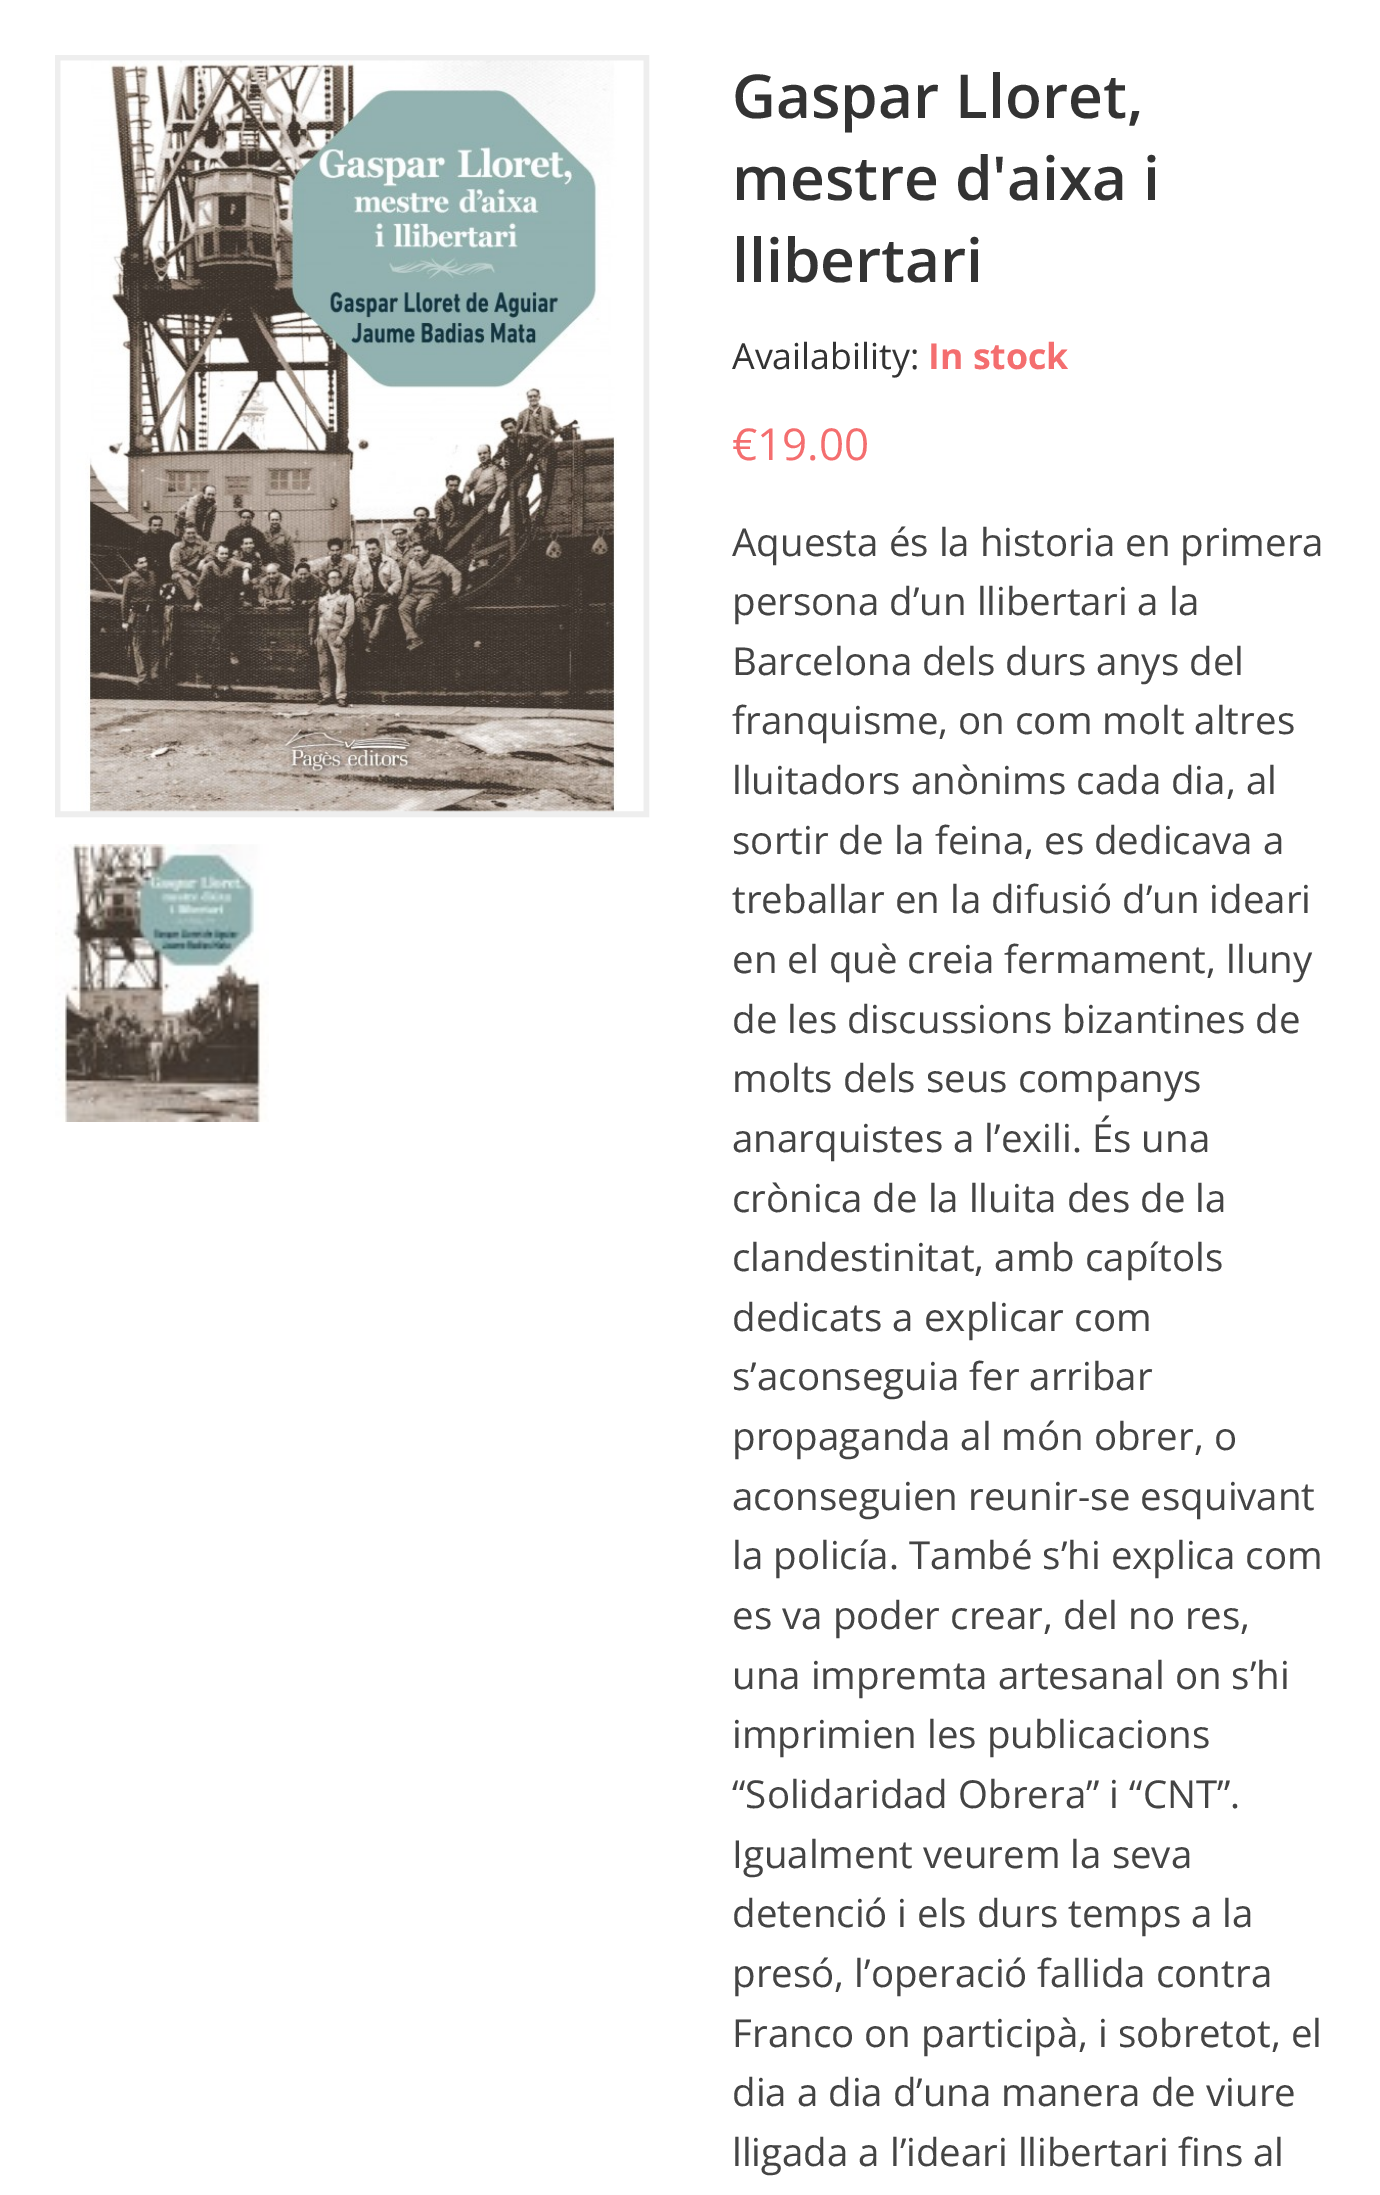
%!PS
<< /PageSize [1380 2195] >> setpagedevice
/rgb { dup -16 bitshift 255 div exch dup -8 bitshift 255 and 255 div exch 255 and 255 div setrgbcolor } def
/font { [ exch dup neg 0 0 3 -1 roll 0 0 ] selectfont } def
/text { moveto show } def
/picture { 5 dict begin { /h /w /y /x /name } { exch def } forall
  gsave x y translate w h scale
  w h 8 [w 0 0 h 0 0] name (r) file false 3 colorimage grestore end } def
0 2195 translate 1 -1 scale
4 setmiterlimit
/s1 { /OpenSans-SemiBold 60.5 font 16#333333 rgb } def
/s2 { /OpenSans-Regular 35.75 font 16#333333 rgb } def
/s3 { /OpenSans-Bold 35.75 font 16#F46E6F rgb } def
/s4 { /OpenSans-Regular 44 font 16#F46E6F rgb } def
/s5 { /OpenSans-Regular 38.5 font 16#444444 rgb } def
16#FFFFFF rgb
0 0 1380 2195 rectfill
16#EEEEEE rgb
6 setlinewidth
58 58 588 756 rectstroke
(pic1.raw) 60 60 584 752 picture
(pic2.raw) 55 844 214 278 picture
s1
(Gaspar Lloret,) 732 118 text
(mestre d'aixa i) 732 200 text
(llibertari) 732 282 text
s2
(Availability:) 732 369 text
s3
(In stock) 928 369 text
s4
(€19.00) 732 460 text
s5
(Aquesta és la historia en primera) 732 556 text
(persona d’un llibertari a la) 732 615 text
(Barcelona dels durs anys del) 732 675 text
(franquisme, on com molt altres) 732 734 text
(lluitadors anònims cada dia, al) 732 794 text
(sortir de la feina, es dedicava a) 732 854 text
(treballar en la difusió d’un ideari) 732 913 text
(en el què creia fermament, lluny) 732 973 text
(de les discussions bizantines de) 732 1033 text
(molts dels seus companys) 732 1092 text
(anarquistes a l’exili. És una) 732 1152 text
(crònica de la lluita des de la) 732 1212 text
(clandestinitat, amb capítols) 732 1271 text
(dedicats a explicar com) 732 1331 text
(s’aconseguia fer arribar) 732 1390 text
(propaganda al món obrer, o) 732 1450 text
(aconseguien reunir-se esquivant) 732 1510 text
(la policía. També s’hi explica com) 732 1569 text
(es va poder crear, del no res,) 732 1629 text
(una impremta artesanal on s’hi) 732 1689 text
(imprimien les publicacions) 732 1748 text
(“Solidaridad Obrera” i “CNT”.) 732 1808 text
(Igualment veurem la seva) 732 1868 text
(detenció i els durs temps a la) 732 1927 text
(presó, l’operació fallida contra) 732 1987 text
(Franco on participà, i sobretot, el) 732 2047 text
(dia a dia d’una manera de viure) 732 2106 text
(lligada a l’ideari llibertari fins al) 732 2166 text
showpage
